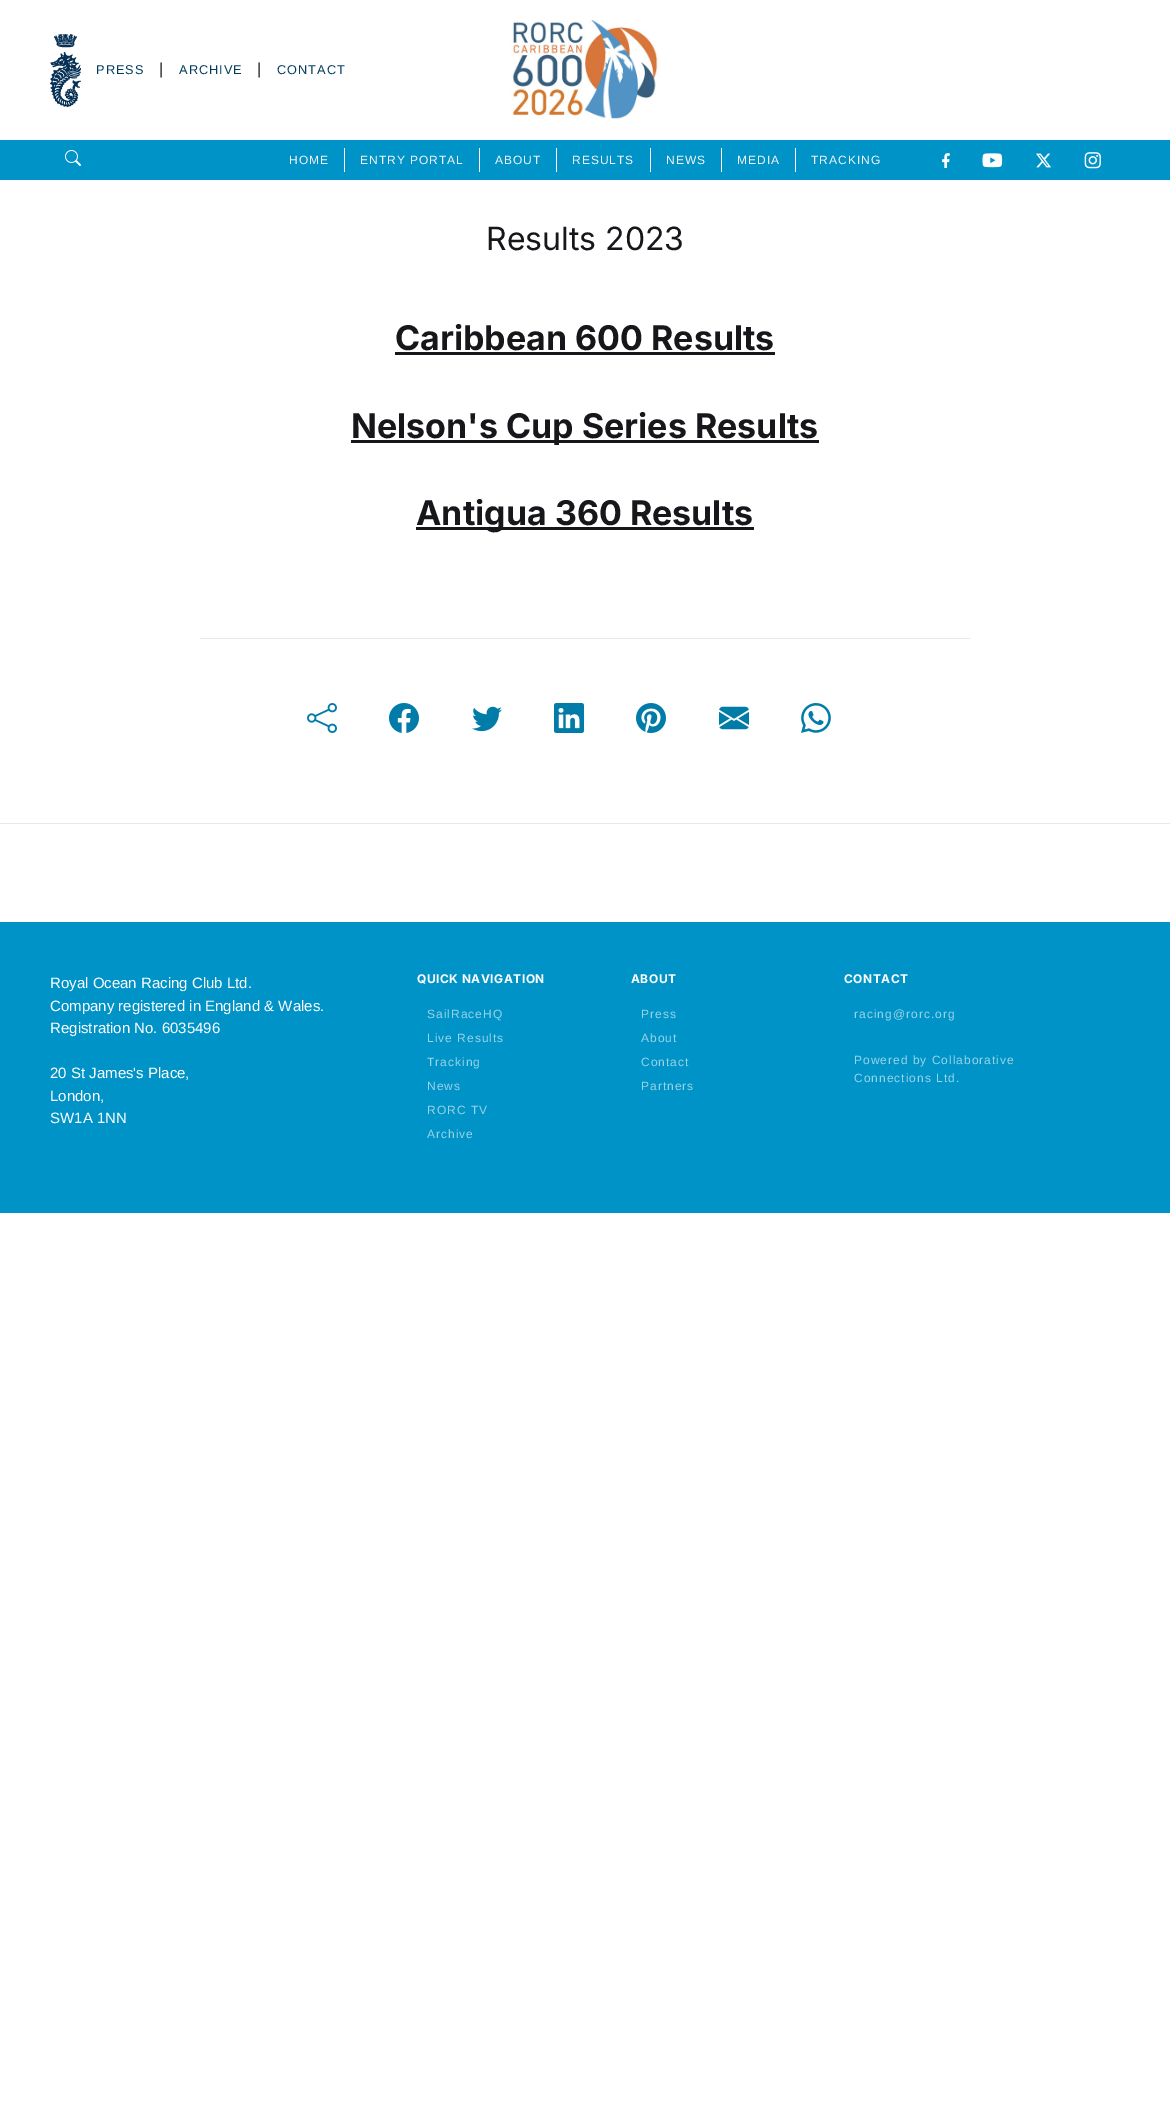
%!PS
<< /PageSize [1170 2125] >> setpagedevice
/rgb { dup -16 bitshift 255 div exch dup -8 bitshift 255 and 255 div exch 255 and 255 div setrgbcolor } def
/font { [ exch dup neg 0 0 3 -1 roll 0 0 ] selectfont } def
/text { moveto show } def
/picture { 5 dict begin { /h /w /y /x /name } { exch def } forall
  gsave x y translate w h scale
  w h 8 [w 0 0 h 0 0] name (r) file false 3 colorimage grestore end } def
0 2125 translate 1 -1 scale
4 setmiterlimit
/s1 { /LiberationSans-Regular 16 font 16#17161A rgb } def
/s2 { /Inter-Regular 32 font 16#17161A rgb } def
/s3 { /Inter-Bold 34 font 16#17161A rgb } def
/s4 { /LiberationSans-Regular 15 font 16#FFFFFF rgb } def
16#FFFFFF rgb
0 0 1170 2125 rectfill
(pic1.raw) 50 34 31 73 picture
/LiberationSans-Regular 12.75 font
16#033B5E rgb
96 74 moveto 1 0 (PRESS) ashow
s1
(|) 159 74 text
/LiberationSans-Regular 12.75 font
16#033B5E rgb
179 74 moveto 1 0 (ARCHIVE) ashow
s1
(|) 257 74 text
/LiberationSans-Regular 12.75 font
16#033B5E rgb
277 74 moveto 1 0 (CONTACT) ashow
(pic2.raw) 511 20 148 99 picture
16#0093C7 rgb
0 140 1170 40 rectfill
(pic3.raw) 65 150 16 16 picture
/LiberationSans-Regular 12 font
16#F5F5F7 rgb
289 164 moveto 1 0 (HOME) ashow
16#FFFFFF rgb
344 148 1 24 rectfill
16#F5F5F7 rgb
360 164 moveto 1 0 (ENTRY PORTAL) ashow
16#FFFFFF rgb
479 148 1 24 rectfill
16#F5F5F7 rgb
495 164 moveto 1 0 (ABOUT) ashow
16#FFFFFF rgb
556 148 1 24 rectfill
16#F5F5F7 rgb
572 164 moveto 1 0 (RESULTS) ashow
16#FFFFFF rgb
650 148 1 24 rectfill
16#F5F5F7 rgb
666 164 moveto 1 0 (NEWS) ashow
16#FFFFFF rgb
721 148 1 24 rectfill
16#F5F5F7 rgb
737 164 moveto 1 0 (MEDIA) ashow
16#FFFFFF rgb
795 148 1 24 rectfill
16#F5F5F7 rgb
811 164 moveto 1 0 (TRACKING) ashow
(pic4.raw) 942 153 8 15 picture
(pic5.raw) 982 153 21 15 picture
(pic6.raw) 1036 153 15 15 picture
(pic7.raw) 1084 152 17 17 picture
s2
(Results 2023) 486 250 text
s3
(Caribbean 600 Results) 395 350 text
395 352 380 3 rectfill
351 440 468 3 rectfill
(Nelson's Cup Series Results) 351 438 text
416 527 338 3 rectfill
(Antigua 360 Results) 416 525 text
16#E8E8E9 rgb
200 638 770 1 rectfill
(pic8.raw) 307 703 30 30 picture
(pic9.raw) 389 703 30 30 picture
(pic10.raw) 472 706 30 26 picture
(pic11.raw) 554 703 30 30 picture
(pic12.raw) 636 703 30 30 picture
(pic13.raw) 719 706 30 24 picture
(pic14.raw) 801 703 30 30 picture
0 823 1170 1 rectfill
16#0093C7 rgb
0 922 1170 291 rectfill
s4
(Royal Ocean Racing Club Ltd.) 50 988 text
(Company registered in England & Wales.) 50 1011 text
(Registration No. 6035496) 50 1033 text
(20 St James's Place,) 50 1078 text
(London,) 50 1101 text
(SW1A 1NN) 50 1123 text
/Inter-Bold 12 font
417 983 moveto 0.5 0 (QUICK NAVIGATION) ashow
/LiberationSans-Regular 12 font
16#99D4E9 rgb
427 1018 moveto 1 0 (SailRaceHQ) ashow
427 1042 moveto 1 0 (Live Results) ashow
427 1066 moveto 1 0 (Tracking) ashow
427 1090 moveto 1 0 (News) ashow
427 1114 moveto 1 0 (RORC TV) ashow
427 1138 moveto 1 0 (Archive) ashow
/Inter-Bold 12 font
16#FFFFFF rgb
631 983 moveto 0.5 0 (ABOUT) ashow
/LiberationSans-Regular 12 font
16#99D4E9 rgb
641 1018 moveto 1 0 (Press) ashow
641 1042 moveto 1 0 (About) ashow
641 1066 moveto 1 0 (Contact) ashow
641 1090 moveto 1 0 (Partners) ashow
/Inter-Bold 12 font
16#FFFFFF rgb
844 983 moveto 0.5 0 (CONTACT) ashow
/LiberationSans-Regular 12 font
16#99D4E9 rgb
854 1018 moveto 1 0 (racing@rorc.org) ashow
854 1064 moveto 1 0 (Powered by Collaborative) ashow
854 1082 moveto 1 0 (Connections Ltd.) ashow
showpage
